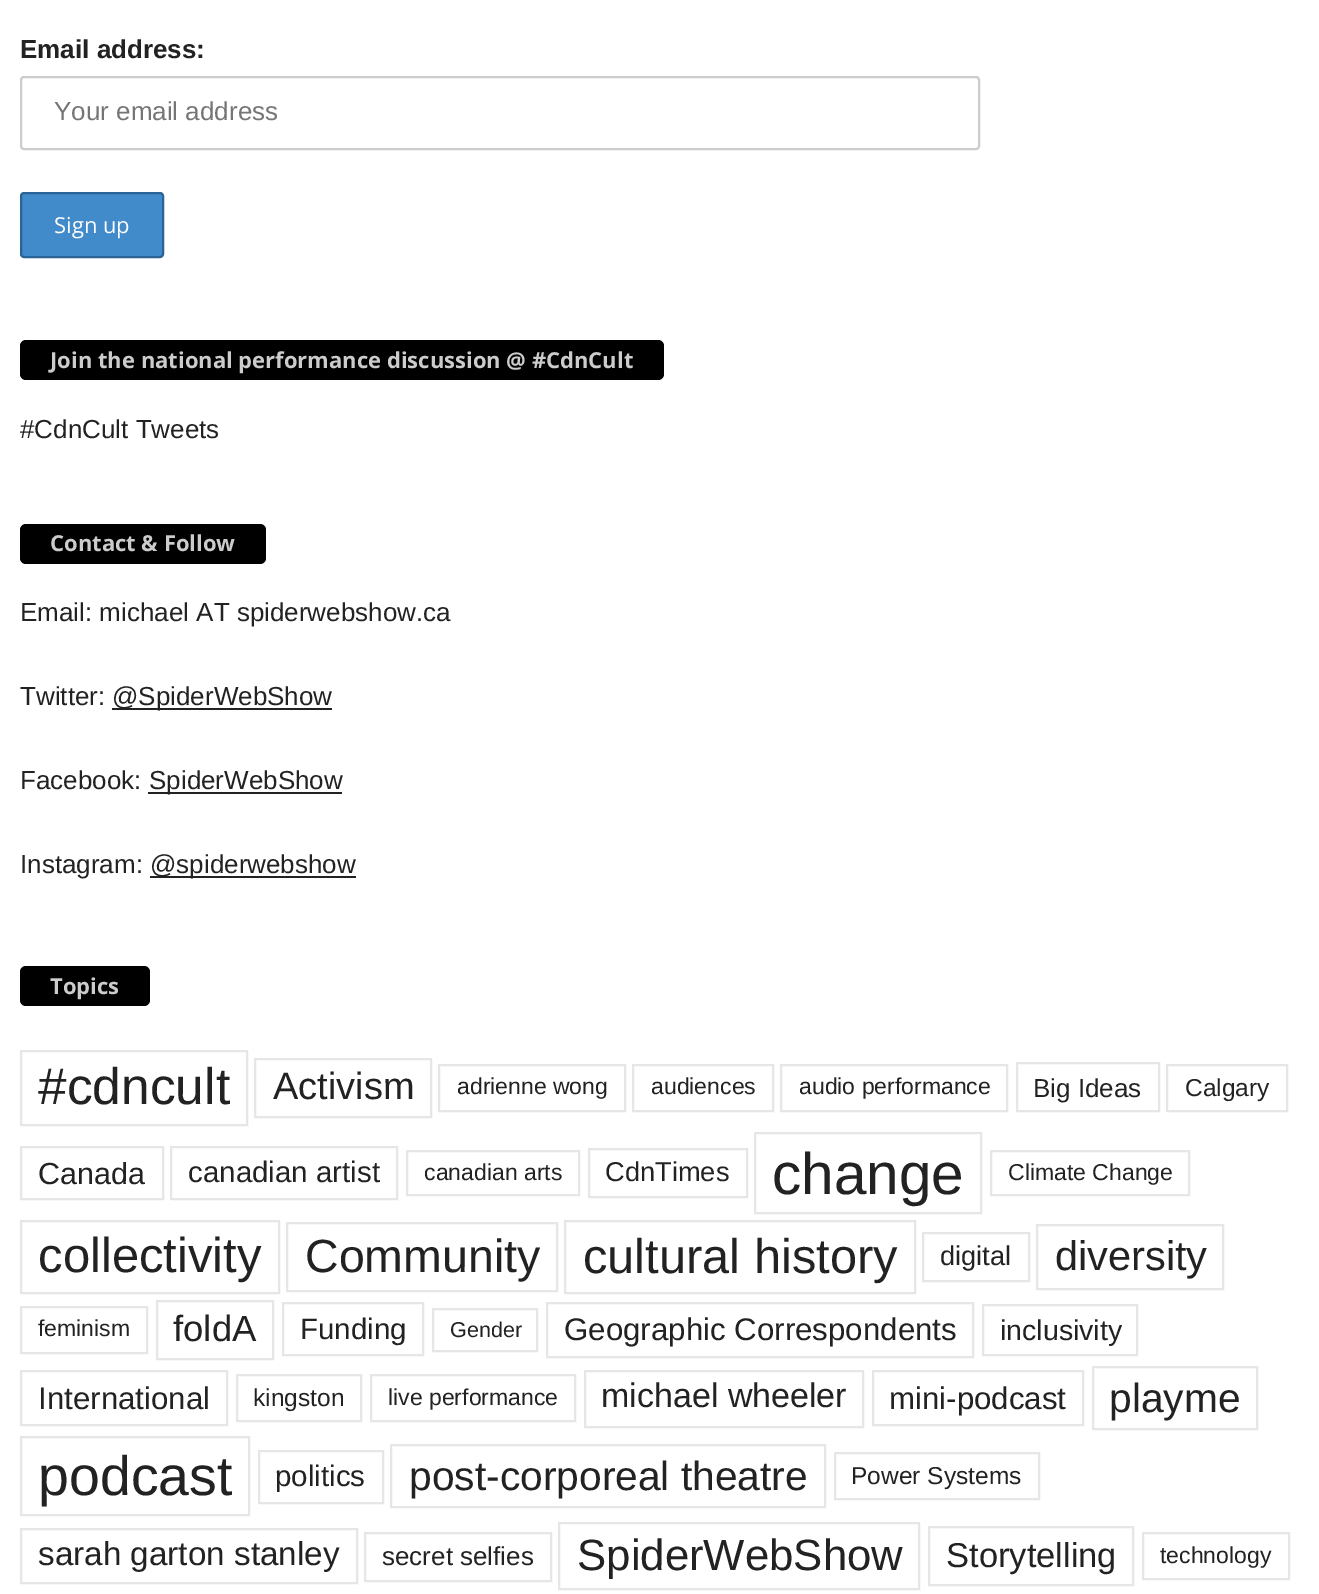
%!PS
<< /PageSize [1319 1594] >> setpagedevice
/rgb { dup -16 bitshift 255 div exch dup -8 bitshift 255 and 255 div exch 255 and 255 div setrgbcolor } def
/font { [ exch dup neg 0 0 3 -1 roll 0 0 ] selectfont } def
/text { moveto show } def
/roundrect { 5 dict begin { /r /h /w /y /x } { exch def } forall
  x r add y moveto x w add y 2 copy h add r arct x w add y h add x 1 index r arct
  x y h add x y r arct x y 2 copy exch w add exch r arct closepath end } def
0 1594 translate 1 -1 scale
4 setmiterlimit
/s1 { /LiberationSans-Bold 26 font 16#222222 rgb } def
/s2 { /LiberationSans-Regular 26 font 16#757575 rgb } def
/s3 { /OpenSans-Regular 22 font 16#FFFFFF rgb } def
/s4 { /OpenSans-Bold 22 font 16#CCCCCC rgb } def
/s5 { /LiberationSans-Regular 26 font 16#222222 rgb } def
/s6 { /LiberationSans-Regular 51.5 font 16#222222 rgb } def
/s7 { /LiberationSans-Regular 38 font 16#222222 rgb } def
/s8 { /LiberationSans-Regular 23 font 16#222222 rgb } def
/s9 { /LiberationSans-Regular 24.5 font 16#222222 rgb } def
/s10 { /LiberationSans-Regular 30.5 font 16#222222 rgb } def
/s11 { /LiberationSans-Regular 29.5 font 16#222222 rgb } def
/s12 { /LiberationSans-Regular 27.25 font 16#222222 rgb } def
/s13 { /LiberationSans-Regular 58.5 font 16#222222 rgb } def
/s14 { /LiberationSans-Regular 49 font 16#222222 rgb } def
/s15 { /LiberationSans-Regular 46.5 font 16#222222 rgb } def
/s16 { /LiberationSans-Regular 48.75 font 16#222222 rgb } def
/s17 { /LiberationSans-Regular 41.5 font 16#222222 rgb } def
/s18 { /LiberationSans-Regular 36.5 font 16#222222 rgb } def
/s19 { /LiberationSans-Regular 21.5 font 16#222222 rgb } def
/s20 { /LiberationSans-Regular 31.25 font 16#222222 rgb } def
/s21 { /LiberationSans-Regular 28.5 font 16#222222 rgb } def
/s22 { /LiberationSans-Regular 34 font 16#222222 rgb } def
/s23 { /LiberationSans-Regular 40.75 font 16#222222 rgb } def
/s24 { /LiberationSans-Regular 55.5 font 16#222222 rgb } def
/s25 { /LiberationSans-Regular 33.25 font 16#222222 rgb } def
/s26 { /LiberationSans-Regular 43.75 font 16#222222 rgb } def
/s27 { /LiberationSans-Regular 34.5 font 16#222222 rgb } def
16#FFFFFF rgb
0 0 1319 1594 rectfill
s1
(Email address:) 20 58 text
16#CCCCCC rgb
2 setlinewidth
21 77 958 72 3 roundrect stroke
s2
(Your email address) 54 120 text
16#428BCA rgb
21 193 142 64 3 roundrect gsave fill grestore
16#2A6496 rgb
stroke
s3
(Sign up) 54 233 text
16#000000 rgb
20 340 644 40 6 roundrect fill
s4
(Join the national performance discussion @ #CdnCult) 50 368 text
s5
(#CdnCult Tweets) 20 438 text
16#000000 rgb
20 524 246 40 6 roundrect fill
s4
(Contact & Follow) 50 551 text
s5
(Email: michael AT spiderwebshow.ca) 20 621 text
(Twitter:) 20 705 text
112 708 220 2 rectfill
(@SpiderWebShow) 112 705 text
(Facebook:) 20 789 text
148 792 194 2 rectfill
(SpiderWebShow) 149 789 text
(Instagram:) 20 873 text
150 876 206 2 rectfill
(@spiderwebshow) 150 873 text
16#000000 rgb
20 966 130 40 6 roundrect fill
s4
(Topics) 50 994 text
16#E6E6E6 rgb
21 1051 226 74 rectstroke
s6
(#cdncult) 38 1104 text
16#E6E6E6 rgb
255 1059 176 58 rectstroke
s7
(Activism) 273 1099 text
16#E6E6E6 rgb
439 1065 186 46 rectstroke
s8
(adrienne wong) 457 1094 text
16#E6E6E6 rgb
633 1065 140 46 rectstroke
s8
(audiences) 651 1094 text
16#E6E6E6 rgb
781 1065 226 46 rectstroke
s8
(audio performance) 799 1094 text
16#E6E6E6 rgb
1017 1063 142 48 rectstroke
s5
(Big Ideas) 1033 1097 text
16#E6E6E6 rgb
1167 1065 120 46 rectstroke
s9
(Calgary) 1185 1096 text
16#E6E6E6 rgb
21 1147 142 52 rectstroke
s10
(Canada) 38 1184 text
16#E6E6E6 rgb
171 1147 226 52 rectstroke
s11
(canadian artist) 188 1182 text
16#E6E6E6 rgb
407 1151 172 44 rectstroke
s8
(canadian arts) 424 1180 text
16#E6E6E6 rgb
589 1149 158 48 rectstroke
s12
(CdnTimes) 605 1181 text
16#E6E6E6 rgb
755 1133 226 80 rectstroke
s13
(change) 772 1194 text
16#E6E6E6 rgb
991 1151 198 44 rectstroke
s8
(Climate Change) 1008 1180 text
16#E6E6E6 rgb
21 1221 258 72 rectstroke
s14
(collectivity) 38 1272 text
16#E6E6E6 rgb
287 1223 270 68 rectstroke
s15
(Community) 305 1272 text
16#E6E6E6 rgb
565 1221 350 72 rectstroke
s16
(cultural history) 583 1273 text
16#E6E6E6 rgb
923 1233 106 48 rectstroke
s12
(digital) 940 1265 text
16#E6E6E6 rgb
1037 1225 186 64 rectstroke
s17
(diversity) 1055 1270 text
16#E6E6E6 rgb
21 1307 126 46 rectstroke
s8
(feminism) 38 1336 text
16#E6E6E6 rgb
157 1301 116 58 rectstroke
s18
(foldA) 173 1341 text
16#E6E6E6 rgb
283 1303 140 52 rectstroke
s11
(Funding) 300 1339 text
16#E6E6E6 rgb
433 1309 104 42 rectstroke
s19
(Gender) 450 1337 text
16#E6E6E6 rgb
547 1303 426 54 rectstroke
s20
(Geographic Correspondents) 564 1340 text
16#E6E6E6 rgb
983 1305 154 50 rectstroke
s21
(inclusivity) 1000 1340 text
16#E6E6E6 rgb
21 1371 206 54 rectstroke
s20
(International) 38 1409 text
16#E6E6E6 rgb
237 1375 124 46 rectstroke
s9
(kingston) 253 1406 text
16#E6E6E6 rgb
371 1375 204 46 rectstroke
s8
(live performance) 388 1405 text
16#E6E6E6 rgb
585 1371 278 56 rectstroke
s22
(michael wheeler) 601 1407 text
16#E6E6E6 rgb
873 1371 210 54 rectstroke
s20
(mini-podcast) 889 1409 text
16#E6E6E6 rgb
1093 1367 164 62 rectstroke
s23
(playme) 1109 1412 text
16#E6E6E6 rgb
21 1437 228 78 rectstroke
s24
(podcast) 38 1495 text
16#E6E6E6 rgb
259 1451 124 52 rectstroke
s11
(politics) 275 1486 text
16#E6E6E6 rgb
391 1445 434 62 rectstroke
s23
(post-corporeal theatre) 409 1490 text
16#E6E6E6 rgb
835 1453 204 46 rectstroke
s9
(Power Systems) 851 1484 text
16#E6E6E6 rgb
21 1529 336 54 rectstroke
s25
(sarah garton stanley) 38 1565 text
16#E6E6E6 rgb
365 1533 186 48 rectstroke
s5
(secret selfies) 382 1565 text
16#E6E6E6 rgb
559 1523 360 66 rectstroke
s26
(SpiderWebShow) 577 1570 text
16#E6E6E6 rgb
929 1527 204 58 rectstroke
s27
(Storytelling) 946 1567 text
16#E6E6E6 rgb
1143 1533 146 46 rectstroke
s8
(technology) 1160 1563 text
showpage
